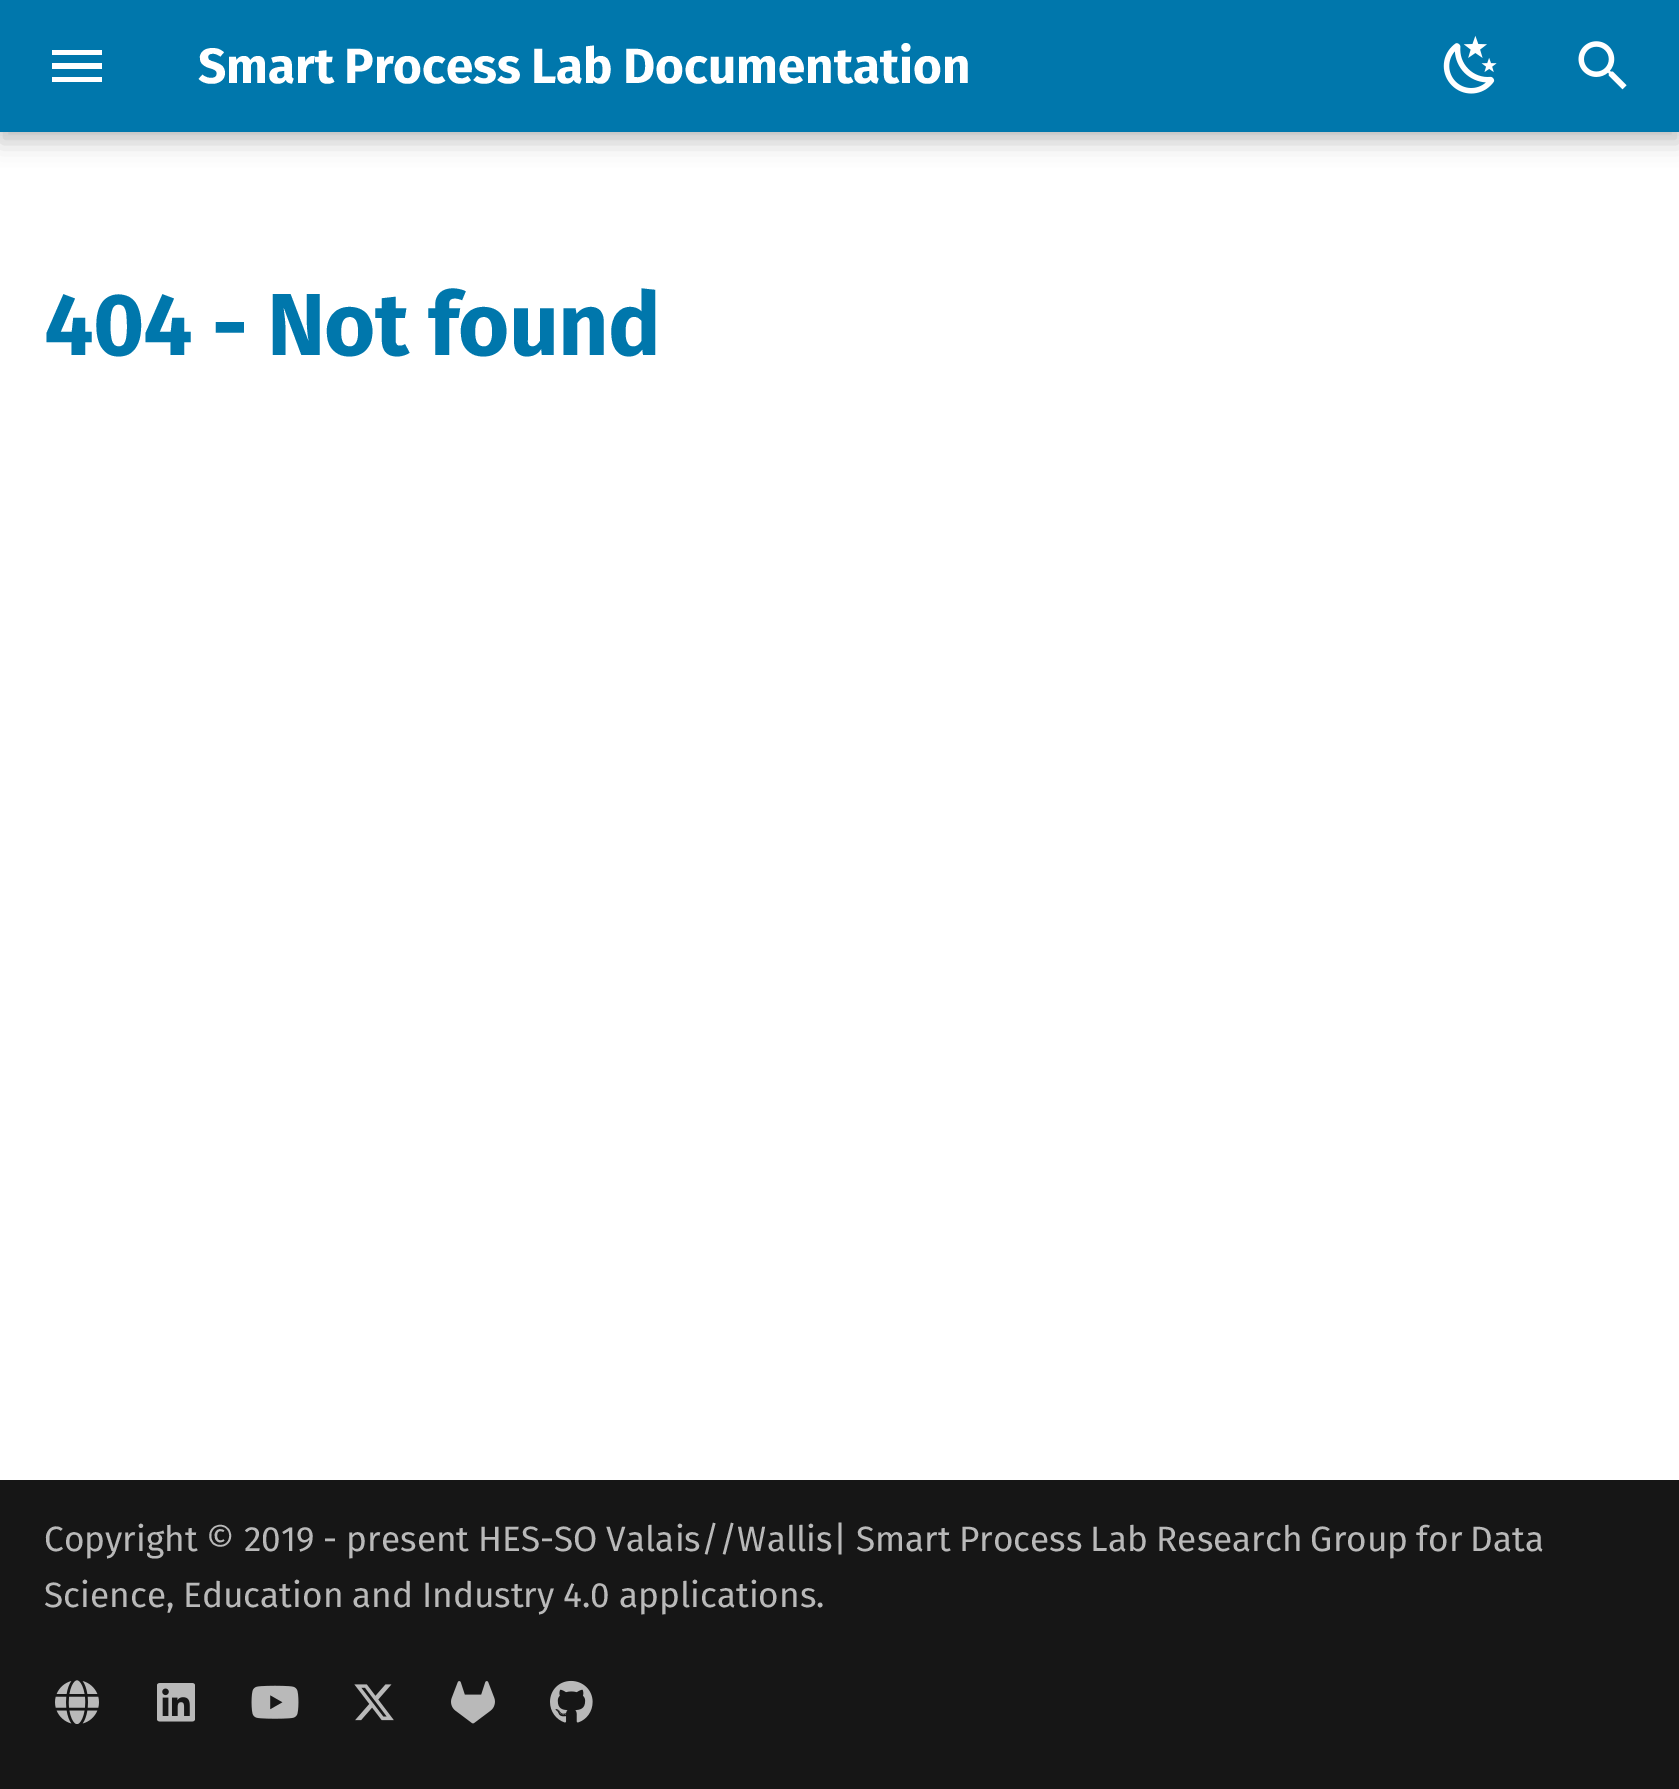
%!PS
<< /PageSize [1679 1789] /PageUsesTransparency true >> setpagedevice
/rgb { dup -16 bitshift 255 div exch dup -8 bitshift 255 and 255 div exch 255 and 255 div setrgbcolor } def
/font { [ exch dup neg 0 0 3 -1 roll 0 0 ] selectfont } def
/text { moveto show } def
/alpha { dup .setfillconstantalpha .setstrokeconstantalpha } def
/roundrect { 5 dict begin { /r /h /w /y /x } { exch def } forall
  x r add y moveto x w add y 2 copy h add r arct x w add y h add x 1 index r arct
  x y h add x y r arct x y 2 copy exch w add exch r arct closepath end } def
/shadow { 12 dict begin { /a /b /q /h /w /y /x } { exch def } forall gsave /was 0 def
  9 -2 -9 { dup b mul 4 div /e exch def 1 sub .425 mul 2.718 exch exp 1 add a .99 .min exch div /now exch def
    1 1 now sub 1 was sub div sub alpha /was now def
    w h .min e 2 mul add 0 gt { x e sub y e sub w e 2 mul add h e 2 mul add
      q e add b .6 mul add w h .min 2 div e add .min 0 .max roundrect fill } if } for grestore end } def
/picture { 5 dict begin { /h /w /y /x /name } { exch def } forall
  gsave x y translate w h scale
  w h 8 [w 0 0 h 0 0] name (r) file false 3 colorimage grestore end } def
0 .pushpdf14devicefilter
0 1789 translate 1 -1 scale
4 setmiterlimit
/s1 { /FiraSans-Regular 35.2 font 16#B9B9B9 rgb } def
16#FFFFFF rgb
0 0 1679 1789 rectfill
16#000000 rgb
0 11 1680 132 0 11 0.2 shadow
0 0 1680 132 0 5.5 0.1 shadow
16#0077AC rgb
0 0 1679 132 rectfill
16#FFFFFF rgb
52 50 moveto 102 50 lineto 102 55 lineto 52 55 lineto closepath 52 63 moveto 102 63 lineto 102 69 lineto 52 69 lineto closepath 52 77 moveto 102 77 lineto 102 82 lineto 52 82 lineto closepath fill
/FiraSans-Bold 49.5 font
198 83 moveto -2 0 32 (Smart Process Lab Documentation) widthshow
(pic1.raw) 1443 35 54 59 picture
(pic2.raw) 1578 41 49 49 picture
/FiraSans-Bold 88 font
16#0077AC rgb
44 355 moveto -0.9 0 (404 - Not found) ashow
16#161616 rgb
0 1480 1679 309 rectfill
/FiraSans-Regular 35.2 font
16#B9B9B9 rgb
44 1551 moveto -0.5 0 32 (Copyright © 2019 - present HES-SO Valais//Wallis) widthshow
(|) 833 1551 text
856 1551 moveto -1.25 0 32 (Smart Process Lab Research Group for Data) widthshow
44 1607 moveto -0.5 0 32 (Science, Education and Industry 4.0 applications.) widthshow
(pic3.raw) 55 1680 44 44 picture
(pic4.raw) 157 1683 38 39 picture
(pic5.raw) 251 1685 48 34 picture
(pic6.raw) 354 1684 40 37 picture
(pic7.raw) 451 1681 44 43 picture
(pic8.raw) 550 1680 43 43 picture
.poppdf14devicefilter showpage
